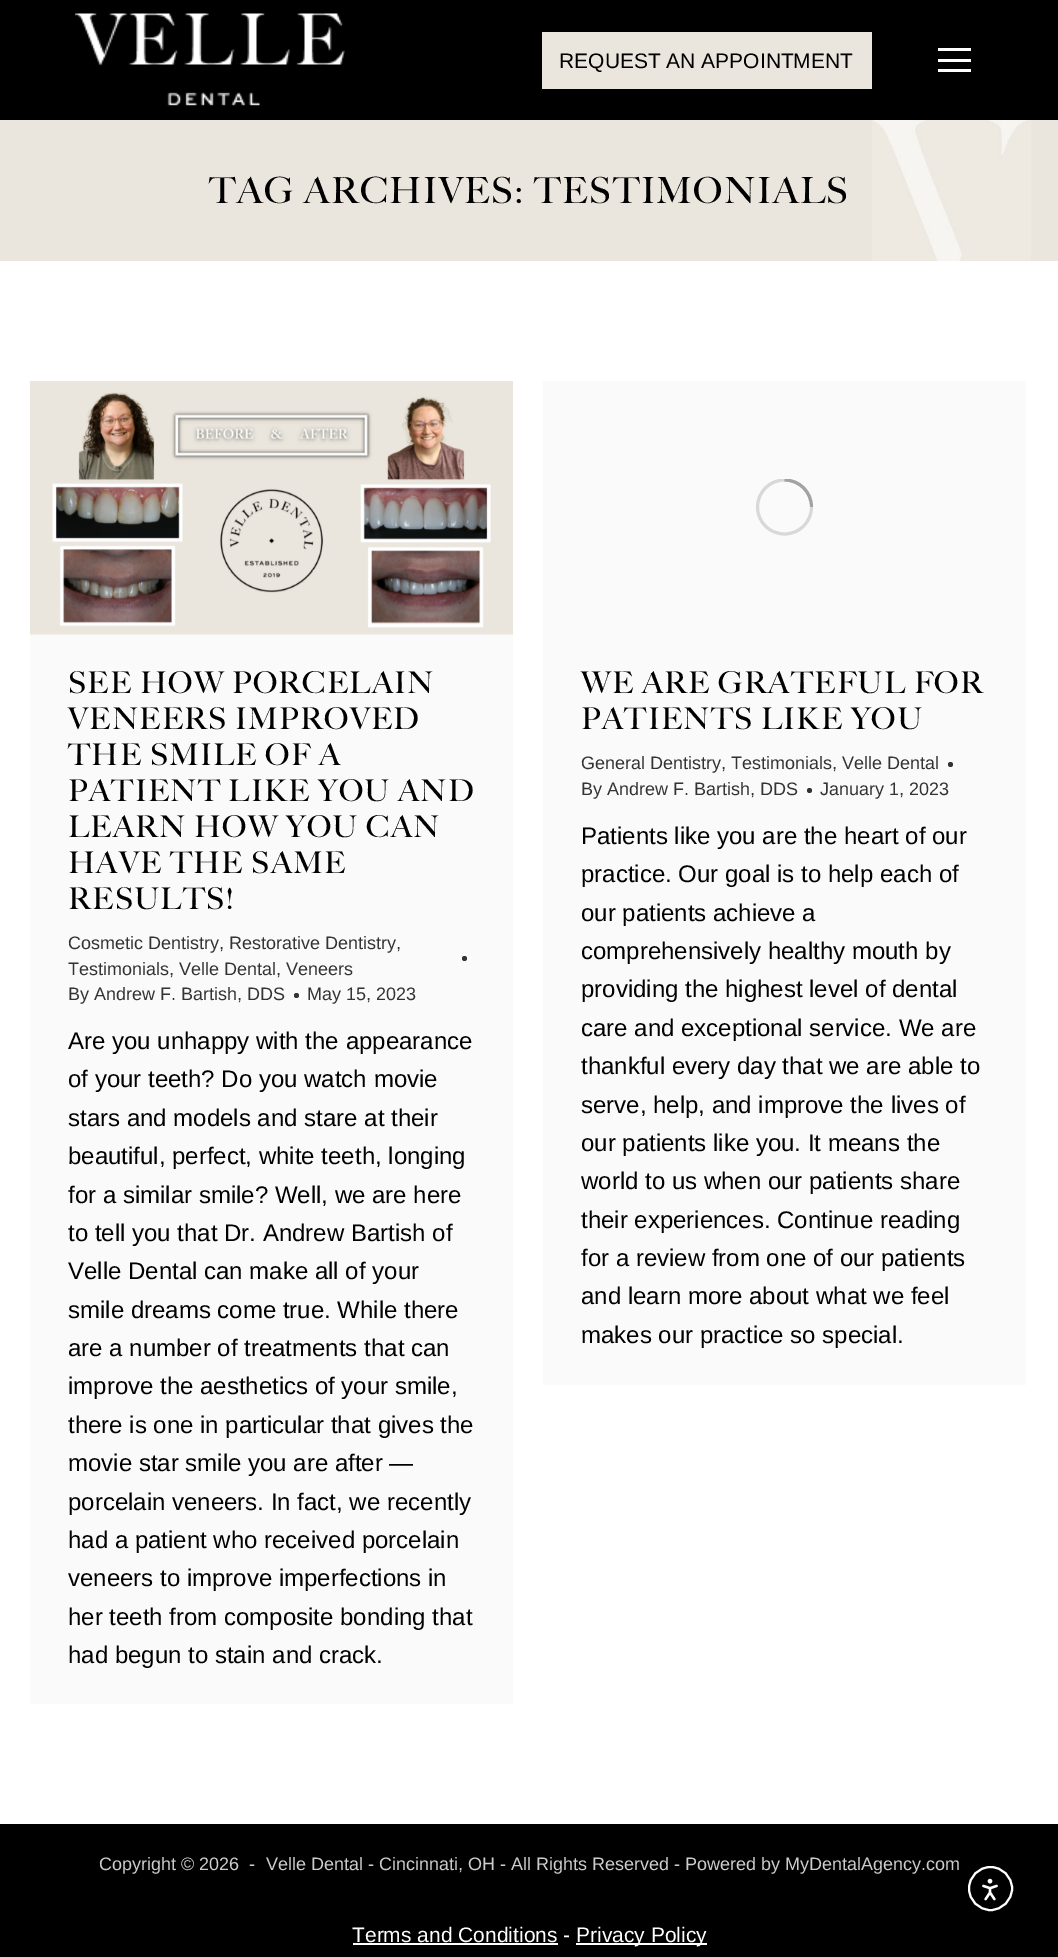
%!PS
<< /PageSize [1058 1957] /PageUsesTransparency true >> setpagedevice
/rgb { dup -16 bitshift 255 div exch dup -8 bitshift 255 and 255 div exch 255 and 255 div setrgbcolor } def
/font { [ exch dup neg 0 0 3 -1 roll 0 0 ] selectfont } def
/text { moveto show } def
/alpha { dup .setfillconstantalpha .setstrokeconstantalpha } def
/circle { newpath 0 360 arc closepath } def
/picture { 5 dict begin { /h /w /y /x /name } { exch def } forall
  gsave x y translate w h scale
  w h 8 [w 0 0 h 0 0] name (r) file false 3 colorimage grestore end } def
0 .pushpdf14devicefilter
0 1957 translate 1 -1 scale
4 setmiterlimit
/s1 { /LiberationSans-Regular 21 font 16#000000 rgb } def
/s2 { /LiberationSans-Regular 18 font 16#333333 rgb } def
/s3 { /LiberationSans-Regular 24 font 16#000000 rgb } def
/s4 { /LiberationSans-Regular 18 font 16#CCCCCC rgb } def
/s5 { /LiberationSans-Regular 21 font 16#FFFFFF rgb } def
16#FFFFFF rgb
0 0 1058 1957 rectfill
16#000000 rgb
0 0 1058 120 rectfill
(pic1.raw) 75 13 270 93 picture
16#EBE6DD rgb
542 32 330 57 rectfill
s1
(REQUEST AN APPOINTMENT) 559 68 text
16#FFFFFF rgb
938 48 33 3 rectfill
938 59 33 3 rectfill
938 69 33 3 rectfill
16#EBE6DD rgb
0 120 1058 141 rectfill
(pic2.raw) 872 120 159 141 picture
/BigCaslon-Medium 36 font
16#000000 rgb
209 203 moveto 1.45 0 (TAG ARCHIVES: TESTIMONIALS) ashow
16#FAFAFA rgb
30 634 483 1070 rectfill
(pic3.raw) 30 381 483 254 picture
/BigCaslon-Medium 30 font
16#000000 rgb
68 693 moveto 1.2 0 (SEE HOW PORCELAIN) ashow
68 729 moveto 1.2 0 (VENEERS IMPROVED) ashow
68 765 moveto 1.2 0 (THE SMILE OF A) ashow
68 801 moveto 1.2 0 (PATIENT LIKE YOU AND) ashow
68 837 moveto 1.2 0 (LEARN HOW YOU CAN) ashow
68 873 moveto 1.2 0 (HAVE THE SAME) ashow
68 909 moveto 1.2 0 (RESULTS!) ashow
s2
(Cosmetic Dentistry, Restorative Dentistry,) 68 949 text
464.5 958.5 2.5 circle fill
(Testimonials, Velle Dental, Veneers) 68 975 text
(By Andrew F. Bartish, DDS) 68 1000 text
296.5 995.5 2.5 circle fill
(May 15, 2023) 307 1000 text
s3
(Are you unhappy with the appearance) 68 1049 text
(of your teeth? Do you watch movie) 68 1087 text
(stars and models and stare at their) 68 1126 text
(beautiful, perfect, white teeth, longing) 68 1164 text
(for a similar smile? Well, we are here) 68 1203 text
(to tell you that Dr. Andrew Bartish of) 68 1241 text
(Velle Dental can make all of your) 68 1279 text
(smile dreams come true. While there) 68 1318 text
(are a number of treatments that can) 68 1356 text
(improve the aesthetics of your smile,) 68 1394 text
(there is one in particular that gives the) 68 1433 text
(movie star smile you are after —) 68 1471 text
(porcelain veneers. In fact, we recently) 68 1510 text
(had a patient who received porcelain) 68 1548 text
(veneers to improve imperfections in) 68 1586 text
(her teeth from composite bonding that) 68 1625 text
(had begun to stain and crack.) 68 1663 text
16#FAFAFA rgb
543 381 483 1004 rectfill
gsave
756 479 57 57 rectclip
16#D8D8D8 rgb
3 setlinewidth
784.5 507 27 circle stroke
0.25 alpha
16#000000 rgb
811.5 507 moveto 811.5 492 799.5 480 784.5 480 curveto stroke
grestore
/BigCaslon-Medium 30 font
16#000000 rgb
581 693 moveto 1.2 0 (WE ARE GRATEFUL FOR) ashow
581 729 moveto 1.2 0 (PATIENTS LIKE YOU) ashow
s2
(General Dentistry, Testimonials, Velle Dental) 581 769 text
950.5 764.5 2.5 circle fill
(By Andrew F. Bartish, DDS) 581 795 text
809.5 790.5 2.5 circle fill
(January 1, 2023) 820 795 text
s3
(Patients like you are the heart of our) 581 844 text
(practice. Our goal is to help each of) 581 882 text
(our patients achieve a) 581 921 text
(comprehensively healthy mouth by) 581 959 text
(providing the highest level of dental) 581 997 text
(care and exceptional service. We are) 581 1036 text
(thankful every day that we are able to) 581 1074 text
(serve, help, and improve the lives of) 581 1113 text
(our patients like you. It means the) 581 1151 text
(world to us when our patients share) 581 1189 text
(their experiences. Continue reading) 581 1228 text
(for a review from one of our patients) 581 1266 text
(and learn more about what we feel) 581 1304 text
(makes our practice so special.) 581 1343 text
0 1824 1058 133 rectfill
s4
(Copyright © 2026  -) 99 1870 text
(Velle Dental - Cincinnati, OH - All Rights Reserved - Powered by MyDentalAgency.com) 266 1870 text
16#FFFFFF rgb
2 setlinewidth
990.5 1888.5 21.5 circle stroke
(pic4.raw) 982 1878 16 23 picture
s5
(Terms and Conditions -) 352 1942 text
353 1943 205 2 rectfill
576 1943 131 2 rectfill
(Privacy Policy) 576 1942 text
.poppdf14devicefilter showpage
